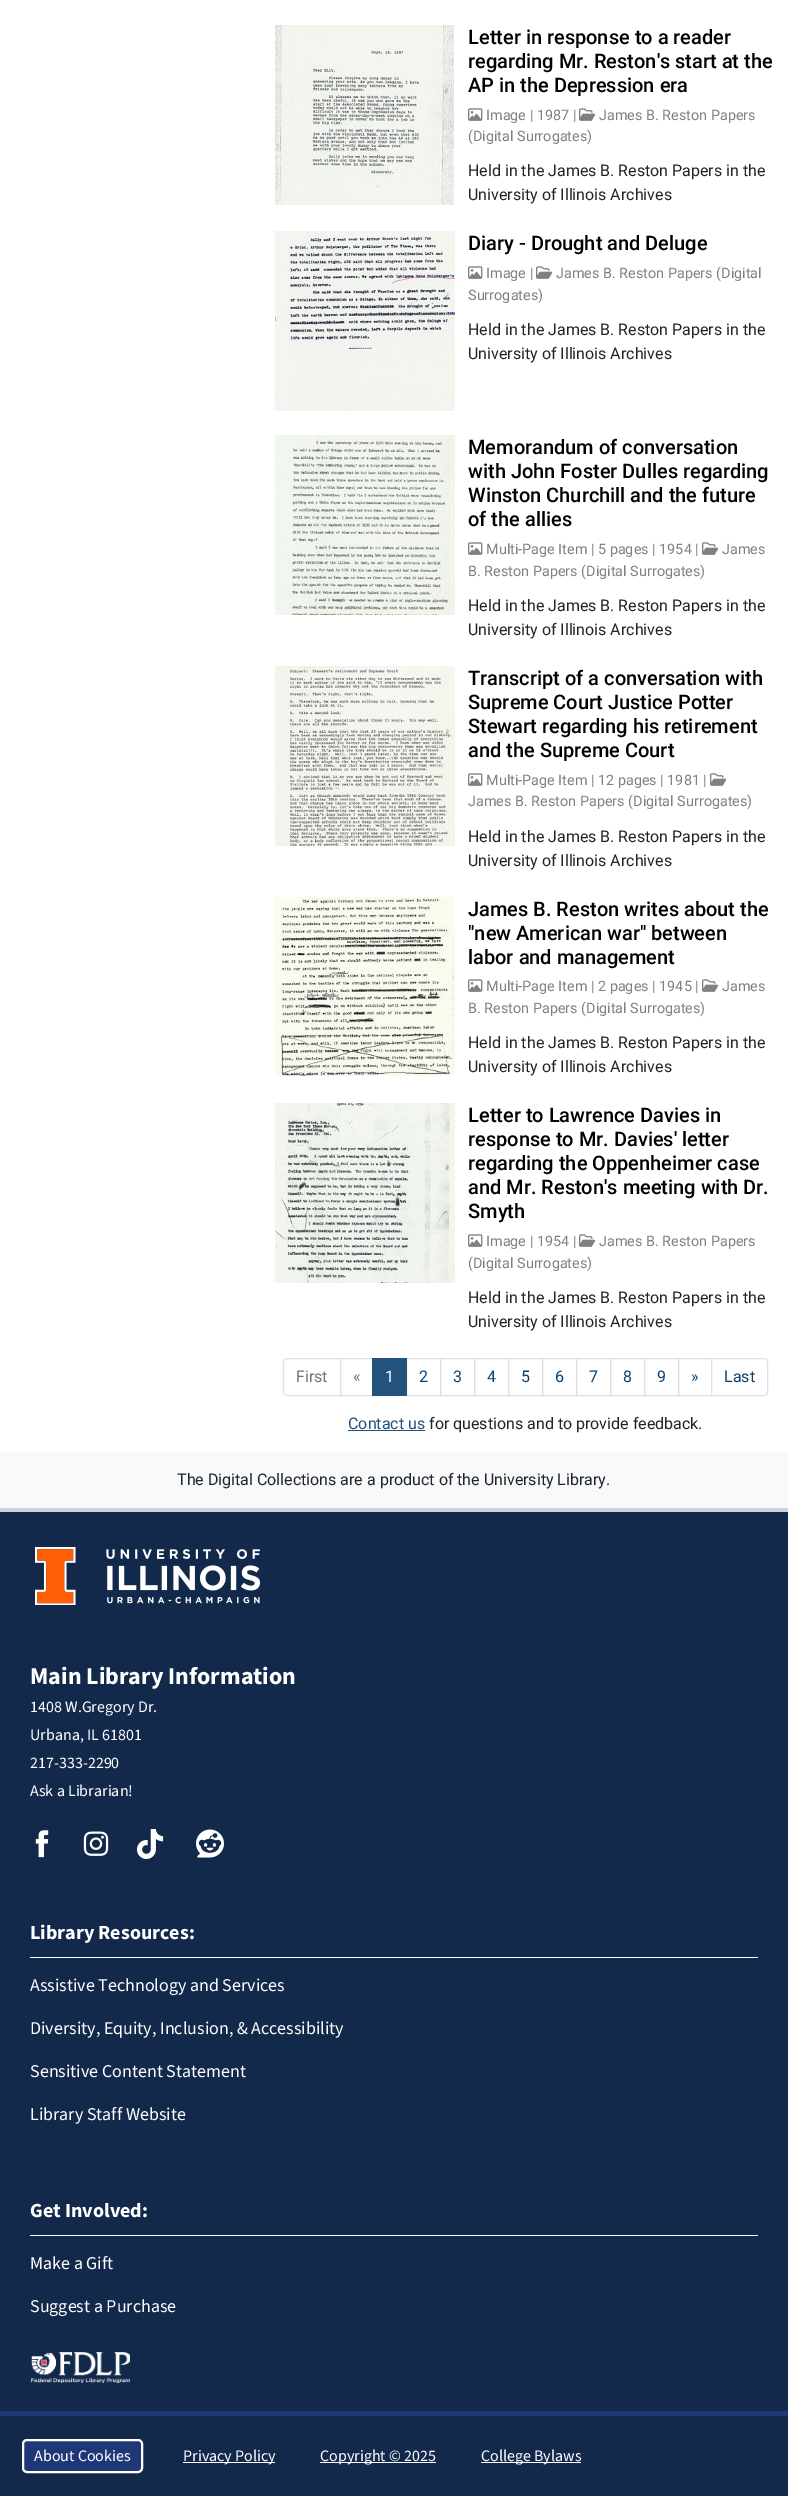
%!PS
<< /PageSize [788 2496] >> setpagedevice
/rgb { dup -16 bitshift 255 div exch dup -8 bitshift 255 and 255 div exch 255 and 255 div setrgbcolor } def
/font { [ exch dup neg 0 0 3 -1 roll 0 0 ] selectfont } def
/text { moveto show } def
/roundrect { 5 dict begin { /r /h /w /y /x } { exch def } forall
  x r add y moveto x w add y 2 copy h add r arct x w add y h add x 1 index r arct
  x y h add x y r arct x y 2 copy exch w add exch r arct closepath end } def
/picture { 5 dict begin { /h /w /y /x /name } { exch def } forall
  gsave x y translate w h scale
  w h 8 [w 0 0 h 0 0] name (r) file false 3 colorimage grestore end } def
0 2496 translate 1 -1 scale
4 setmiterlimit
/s1 { /Roboto-Medium 20 font 16#000000 rgb } def
/s2 { /Roboto-Regular 14.4 font 16#808080 rgb } def
/s3 { /Roboto-Regular 16 font 16#212529 rgb } def
/s4 { /Roboto-Regular 16 font 16#6C757D rgb } def
/s5 { /Roboto-Regular 16 font 16#FFFFFF rgb } def
/s6 { /Roboto-Regular 16 font 16#0B406F rgb } def
/s7 { /Roboto-Regular 16 font 16#23527C rgb } def
/s8 { /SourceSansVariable-Bold 24 font 16#FFFFFF rgb } def
/s9 { /SourceSansVariable-Regular 16 font 16#FFFFFF rgb } def
/s10 { /SourceSansVariable-Bold 20 font 16#FFFFFF rgb } def
/s11 { /SourceSansVariable-Regular 18 font 16#FFFFFF rgb } def
16#FFFFFF rgb
0 0 788 2496 rectfill
(pic1.raw) 275 25 179 180 picture
s1
(Letter in response to a reader) 468 44 text
(regarding Mr. Reston's start at the) 468 68 text
(AP in the Depression era) 468 92 text
(pic2.raw) 468 108 15 13 picture
s2
(Image | 1987 |) 486 120 text
(pic3.raw) 579 108 17 13 picture
(James B. Reston Papers) 599 120 text
(\(Digital Surrogates\)) 468 141 text
s3
(Held in the James B. Reston Papers in the) 468 176 text
(University of Illinois Archives) 468 200 text
(pic4.raw) 275 231 180 180 picture
s1
(Diary - Drought and Deluge) 468 250 text
(pic2.raw) 468 266 15 13 picture
s2
(Image |) 486 278 text
(pic3.raw) 536 266 17 13 picture
(James B. Reston Papers \(Digital) 556 278 text
(Surrogates\)) 468 300 text
s3
(Held in the James B. Reston Papers in the) 468 335 text
(University of Illinois Archives) 468 359 text
(pic5.raw) 275 435 180 180 picture
s1
(Memorandum of conversation) 468 454 text
(with John Foster Dulles regarding) 468 478 text
(Winston Churchill and the future) 468 502 text
(of the allies) 468 526 text
(pic2.raw) 468 542 15 13 picture
s2
(Multi-Page Item | 5 pages | 1954 |) 486 554 text
(pic3.raw) 702 542 17 13 picture
(James) 722 554 text
(B. Reston Papers \(Digital Surrogates\)) 468 576 text
s3
(Held in the James B. Reston Papers in the) 468 611 text
(University of Illinois Archives) 468 635 text
(pic6.raw) 275 666 180 180 picture
s1
(Transcript of a conversation with) 468 685 text
(Supreme Court Justice Potter) 468 709 text
(Stewart regarding his retirement) 468 733 text
(and the Supreme Court) 468 757 text
(pic2.raw) 468 773 15 13 picture
s2
(Multi-Page Item | 12 pages | 1981 |) 486 785 text
(pic3.raw) 710 773 17 13 picture
(James B. Reston Papers \(Digital Surrogates\)) 468 806 text
s3
(Held in the James B. Reston Papers in the) 468 842 text
(University of Illinois Archives) 468 866 text
(pic7.raw) 275 897 180 179 picture
s1
(James B. Reston writes about the) 468 916 text
("new American war" between) 468 940 text
(labor and management) 468 964 text
(pic2.raw) 468 979 15 13 picture
s2
(Multi-Page Item | 2 pages | 1945 |) 486 991 text
(pic3.raw) 702 979 17 13 picture
(James) 722 991 text
(B. Reston Papers \(Digital Surrogates\)) 468 1013 text
s3
(Held in the James B. Reston Papers in the) 468 1048 text
(University of Illinois Archives) 468 1072 text
(pic8.raw) 275 1103 180 180 picture
s1
(Letter to Lawrence Davies in) 468 1122 text
(response to Mr. Davies' letter) 468 1146 text
(regarding the Oppenheimer case) 468 1170 text
(and Mr. Reston's meeting with Dr.) 468 1194 text
(Smyth) 468 1218 text
(pic2.raw) 468 1234 15 13 picture
s2
(Image | 1954 |) 486 1246 text
(pic3.raw) 579 1234 17 13 picture
(James B. Reston Papers) 599 1246 text
(\(Digital Surrogates\)) 468 1268 text
s3
(Held in the James B. Reston Papers in the) 468 1303 text
(University of Illinois Archives) 468 1327 text
16#DEE2E6 rgb
287 1358.5 moveto 340.5 1358.5 lineto 340.5 1395.5 lineto 287 1395.5 lineto 285 1395.5 283.5 1394 283.5 1392 curveto 283.5 1362 lineto 283.5 1360 285 1358.5 287 1358.5 curveto closepath stroke
s4
(First) 296 1382 text
16#DEE2E6 rgb
340.5 1358.5 32 37 rectstroke
s4
(«) 353 1382 text
16#DEE2E6 rgb
406.5 1358.5 34 37 rectstroke
16#23527C rgb
372 1358 35 38 rectfill
s5
(1) 385 1382 text
s6
(2) 419 1382 text
16#DEE2E6 rgb
440.5 1358.5 34 37 rectstroke
s6
(3) 453 1382 text
16#DEE2E6 rgb
474.5 1358.5 34 37 rectstroke
s6
(4) 487 1382 text
16#DEE2E6 rgb
508.5 1358.5 34 37 rectstroke
s6
(5) 521 1382 text
16#DEE2E6 rgb
542.5 1358.5 34 37 rectstroke
s6
(6) 555 1382 text
16#DEE2E6 rgb
576.5 1358.5 34 37 rectstroke
s6
(7) 589 1382 text
16#DEE2E6 rgb
610.5 1358.5 34 37 rectstroke
s6
(8) 623 1382 text
16#DEE2E6 rgb
644.5 1358.5 34 37 rectstroke
s6
(9) 657 1382 text
16#DEE2E6 rgb
678.5 1358.5 33 37 rectstroke
s6
(») 691 1382 text
16#FFFFFF rgb
711.5 1358.5 moveto 764 1358.5 lineto 766 1358.5 767.5 1360 767.5 1362 curveto 767.5 1392 lineto 767.5 1394 766 1395.5 764 1395.5 curveto 711.5 1395.5 lineto closepath gsave fill grestore
16#DEE2E6 rgb
stroke
s6
(Last) 724 1382 text
s7
(Contact us) 348 1429 text
348 1430 77 1 rectfill
s3
(for questions and to provide feedback.) 429 1429 text
16#F8F9FA rgb
0 1452 788 56 rectfill
16#CED4DA rgb
0 1508 788 4 rectfill
s3
(The Digital Collections are a product of the University Library.) 177 1485 text
16#13294B rgb
0 1512 788 984 rectfill
(pic9.raw) 35 1547 225 58 picture
s8
(Main Library Information) 30 1684 text
s9
(1408 W.Gregory Dr.) 30 1712 text
(Urbana, IL 61801) 30 1740 text
(217-333-2290) 30 1768 text
(Ask a Librarian!) 30 1796 text
(pic10.raw) 35 1830 14 28 picture
(pic11.raw) 83 1831 26 25 picture
(pic12.raw) 136 1829 28 30 picture
(pic13.raw) 196 1829 28 29 picture
30 1957 728 1 rectfill
s10
(Library Resources:) 30 1939 text
s11
(Assistive Technology and Services) 30 1991 text
(Diversity, Equity, Inclusion, & Accessibility) 30 2034 text
(Sensitive Content Statement) 30 2077 text
(Library Staff Website) 30 2120 text
30 2235 728 1 rectfill
s10
(Get Involved:) 30 2217 text
s11
(Make a Gift) 30 2269 text
(Suggest a Purchase) 30 2312 text
(pic14.raw) 31 2352 99 31 picture
16#1E3877 rgb
0 2411 788 5 rectfill
23 2440 119 32 4 roundrect gsave fill grestore
16#FFFFFF rgb
2 setlinewidth
stroke
s9
(About Cookies) 34 2461 text
183 2462 92 1 rectfill
(Privacy Policy) 183 2461 text
320 2462 116 1 rectfill
(Copyright © 2025) 320 2461 text
481 2462 100 1 rectfill
(College Bylaws) 481 2461 text
showpage
